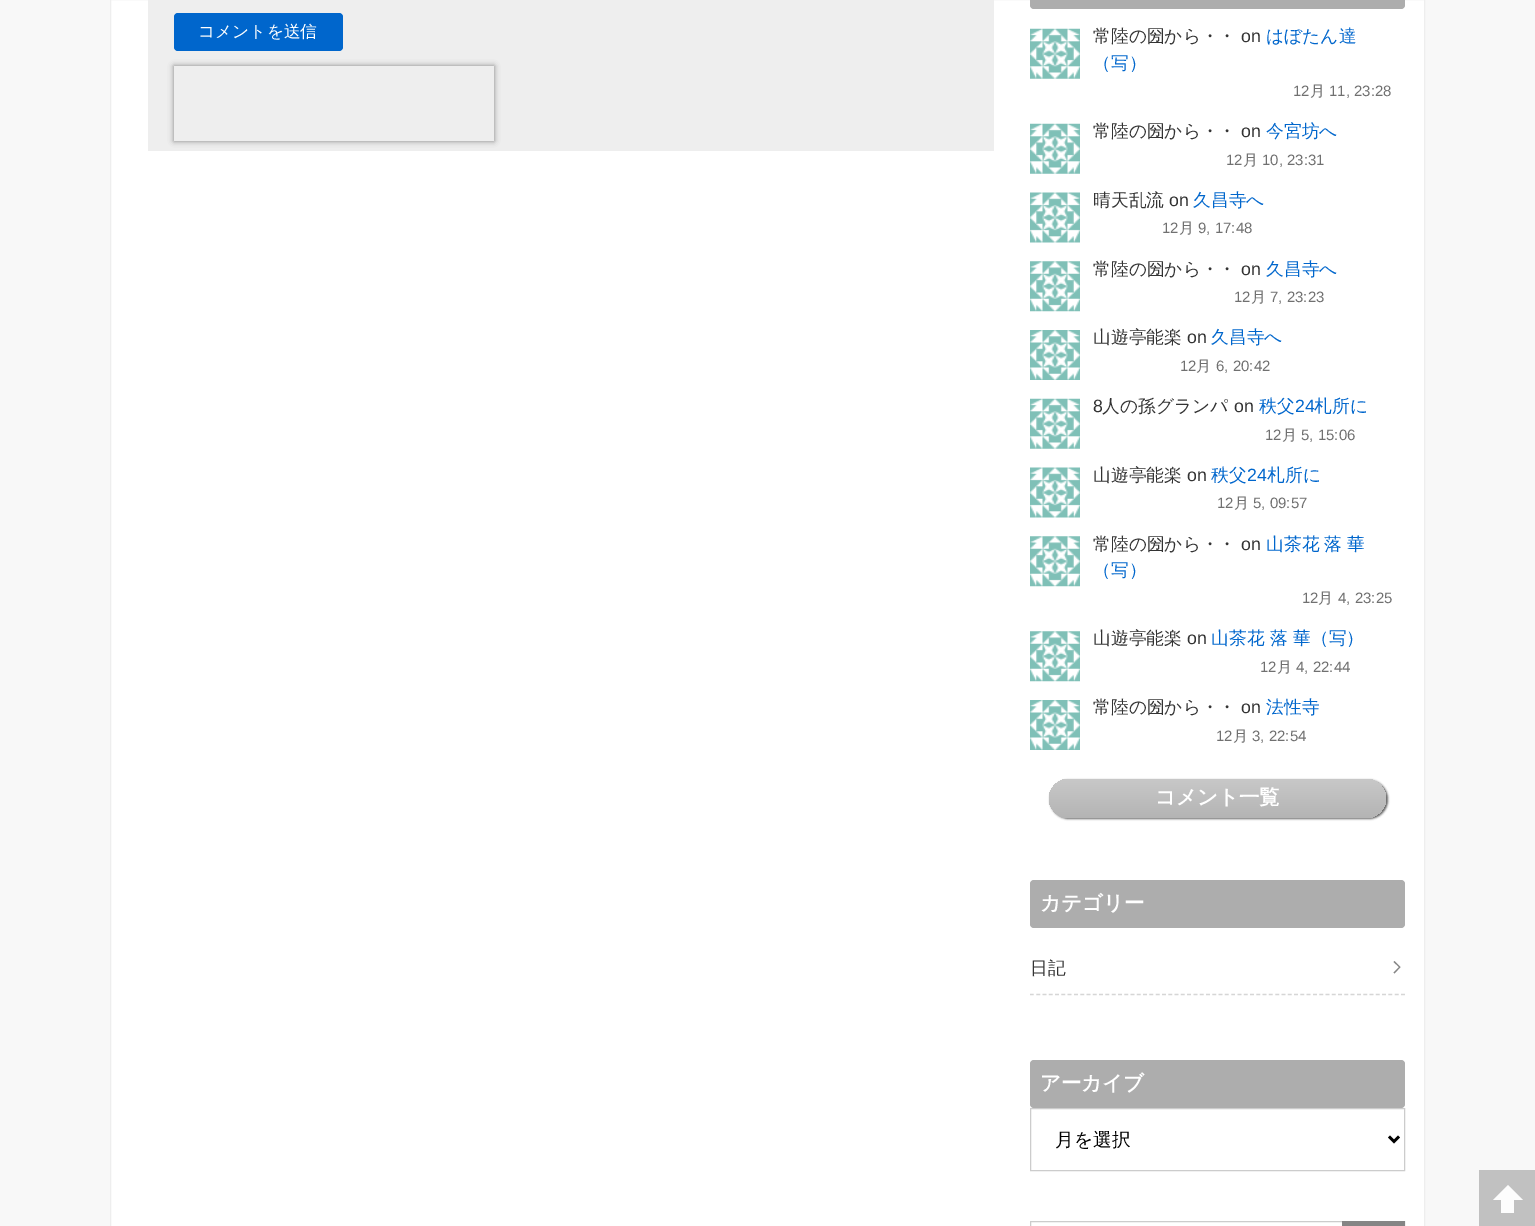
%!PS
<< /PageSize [1535 1226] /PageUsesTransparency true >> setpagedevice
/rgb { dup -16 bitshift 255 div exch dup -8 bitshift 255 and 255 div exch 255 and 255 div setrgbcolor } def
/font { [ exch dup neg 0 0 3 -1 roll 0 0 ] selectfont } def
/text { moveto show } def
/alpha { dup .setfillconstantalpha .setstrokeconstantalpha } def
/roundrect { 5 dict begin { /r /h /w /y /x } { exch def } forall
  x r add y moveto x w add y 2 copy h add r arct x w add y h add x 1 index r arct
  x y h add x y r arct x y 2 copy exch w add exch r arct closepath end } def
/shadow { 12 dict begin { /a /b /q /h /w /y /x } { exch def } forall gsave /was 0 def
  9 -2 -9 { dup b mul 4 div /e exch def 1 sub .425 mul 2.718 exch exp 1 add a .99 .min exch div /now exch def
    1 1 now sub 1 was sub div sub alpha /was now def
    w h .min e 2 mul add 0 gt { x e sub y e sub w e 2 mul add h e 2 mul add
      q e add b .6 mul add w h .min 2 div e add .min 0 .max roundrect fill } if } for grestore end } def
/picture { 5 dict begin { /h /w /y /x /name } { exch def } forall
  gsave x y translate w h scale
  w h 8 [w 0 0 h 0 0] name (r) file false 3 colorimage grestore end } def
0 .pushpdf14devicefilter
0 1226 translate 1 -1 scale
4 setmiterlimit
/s1 { /WenQuanYiZenHei-Medium 16.75 font 16#FFFFFF rgb } def
/s2 { /WenQuanYiZenHei-Medium 17.75 font 16#333333 rgb } def
/s3 { /LiberationSans-Regular 17.75 font 16#333333 rgb } def
/s4 { /WenQuanYiZenHei-Medium 17.75 font 16#0066CC rgb } def
/s5 { /LiberationSans-Regular 15 font 16#707070 rgb } def
/s6 { /WenQuanYiZenHei-Medium 15 font 16#707070 rgb } def
/s7 { /LiberationSans-Regular 17.75 font 16#0066CC rgb } def
/s8 { /WenQuanYiZenHei-Bold 20.5 font 16#FFFFFF rgb } def
/s9 { /WenQuanYiZenHei-Medium 18.75 font 16#000000 rgb } def
16#F8F8F8 rgb
0 0 1535 1226 rectfill
16#FFFFFF rgb
110.5 -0.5 moveto 1424.5 -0.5 lineto 1424.5 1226.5 lineto 110.5 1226.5 lineto closepath gsave fill grestore
16#EEEEEE rgb
stroke
148 0 846 151 rectfill
16#0066CC rgb
174 13 169 38 4 roundrect fill
s1
(コメントを送信) 198 37 text
gsave
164 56 moveto 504 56 lineto 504 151 lineto 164 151 lineto closepath 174 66 moveto 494 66 lineto 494 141 lineto 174 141 lineto closepath eoclip newpath
16#808080 rgb
174 66 320 75 0 3 1 shadow
grestore
16#ADADAD rgb
1030 -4 375 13 4 roundrect fill
(pic1.raw) 1030 28 50 51 picture
s2
(常陸の圀から・・) 1093 42 text
s3
(on) 1241 42 text
s4
(はぼたん達) 1266 42 text
(（写）) 1093 69 text
s5
(12) 1293 96 text
s6
(月) 1310 96 text
s5
(11, 23:28) 1329 96 text
(pic1.raw) 1030 123 50 51 picture
s2
(常陸の圀から・・) 1093 137 text
s3
(on) 1241 137 text
s4
(今宮坊へ) 1266 137 text
s5
(12) 1226 165 text
s6
(月) 1243 165 text
s5
(10, 23:31) 1262 165 text
(pic2.raw) 1030 192 50 51 picture
s2
(晴天乱流) 1093 206 text
s3
(on) 1169 206 text
s4
(久昌寺へ) 1193 206 text
s5
(12) 1162 233 text
s6
(月) 1179 233 text
s5
(9, 17:48) 1198 233 text
(pic3.raw) 1030 261 50 51 picture
s2
(常陸の圀から・・) 1093 275 text
s3
(on) 1241 275 text
s4
(久昌寺へ) 1266 275 text
s5
(12) 1234 302 text
s6
(月) 1251 302 text
s5
(7, 23:23) 1270 302 text
(pic4.raw) 1030 330 50 50 picture
s2
(山遊亭能楽) 1093 343 text
s3
(on) 1187 343 text
s4
(久昌寺へ) 1211 343 text
s5
(12) 1180 371 text
s6
(月) 1196 371 text
s5
(6, 20:42) 1216 371 text
(pic1.raw) 1030 398 50 51 picture
s3
(8) 1093 412 text
s2
(人の孫グランパ) 1102 412 text
s3
(on) 1234 412 text
s4
(秩父) 1259 412 text
s7
(24) 1295 412 text
s4
(札所に) 1314 412 text
s5
(12) 1265 440 text
s6
(月) 1282 440 text
s5
(5, 15:06) 1301 440 text
(pic5.raw) 1030 467 50 51 picture
s2
(山遊亭能楽) 1093 481 text
s3
(on) 1187 481 text
s4
(秩父) 1211 481 text
s7
(24) 1247 481 text
s4
(札所に) 1267 481 text
s5
(12) 1217 508 text
s6
(月) 1234 508 text
s5
(5, 09:57) 1253 508 text
(pic3.raw) 1030 536 50 51 picture
s2
(常陸の圀から・・) 1093 550 text
s3
(on) 1241 550 text
s4
(山茶花) 1266 550 text
(落 華) 1324 550 text
(（写）) 1093 576 text
s5
(12) 1302 603 text
s6
(月) 1318 603 text
s5
(4, 23:25) 1338 603 text
(pic3.raw) 1030 631 50 51 picture
s2
(山遊亭能楽) 1093 644 text
s3
(on) 1187 644 text
s4
(山茶花) 1211 644 text
(落 華（写）) 1270 644 text
s5
(12) 1260 672 text
s6
(月) 1277 672 text
s5
(4, 22:44) 1296 672 text
(pic4.raw) 1030 700 50 50 picture
s2
(常陸の圀から・・) 1093 713 text
s3
(on) 1241 713 text
s4
(法性寺) 1266 713 text
s5
(12) 1216 741 text
s6
(月) 1233 741 text
s5
(3, 22:54) 1252 741 text
16#666666 rgb
1050 780 338 39 19.5 1 1 shadow
gsave 1049 779 337 39 19.5 roundrect clip newpath
<< /ShadingType 2 /ColorSpace /DeviceRGB /Coords [1218 779 1218 818] /Extend [true true] /Function << /FunctionType 2 /Domain [0 1] /C0 [0.784 0.784 0.784] /C1 [0.706 0.706 0.706] /N 1 >> >> shfill grestore
s8
(コメント一覧) 1155 804 text
16#ADADAD rgb
1030 880 375 48 4 roundrect fill
s8
(カテゴリー) 1040 910 text
16#D6D6D6 rgb
1.2 setlinewidth
[3.75 2.54] 0 setdash
1030 994.5 moveto 1405 994.5 lineto stroke
s2
(日記) 1030 974 text
16#858585 rgb
1394.5 961 moveto 1400.5 967 lineto 1399 967 lineto 1393.5 962 lineto closepath 1400.5 967 moveto 1394.5 973.5 lineto 1393.5 972.5 lineto 1399 967 lineto closepath fill
16#ADADAD rgb
1030 1060 375 48 4 roundrect fill
s8
(アーカイブ) 1040 1090 text
16#CCCCCC rgb
1 setlinewidth
[] 0 setdash
1030.5 1108.5 374 62 rectstroke
16#000000 rgb
2.5 setlinewidth
1389 1136.5 moveto 1394 1141.5 lineto 1399 1136.5 lineto stroke
s9
(月を選択) 1055 1146 text
16#CCCCCC rgb
1 setlinewidth
1030.5 1221.5 374 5 rectstroke
16#858585 rgb
1342 1221 63 5 rectfill
16#C1C1C1 rgb
1479 1170 56 56 rectfill
16#FDFDFD rgb
1523 1200 moveto 1493 1200 lineto 1508 1185 lineto closepath fill
1501 1200 13 13 rectfill
.poppdf14devicefilter showpage
